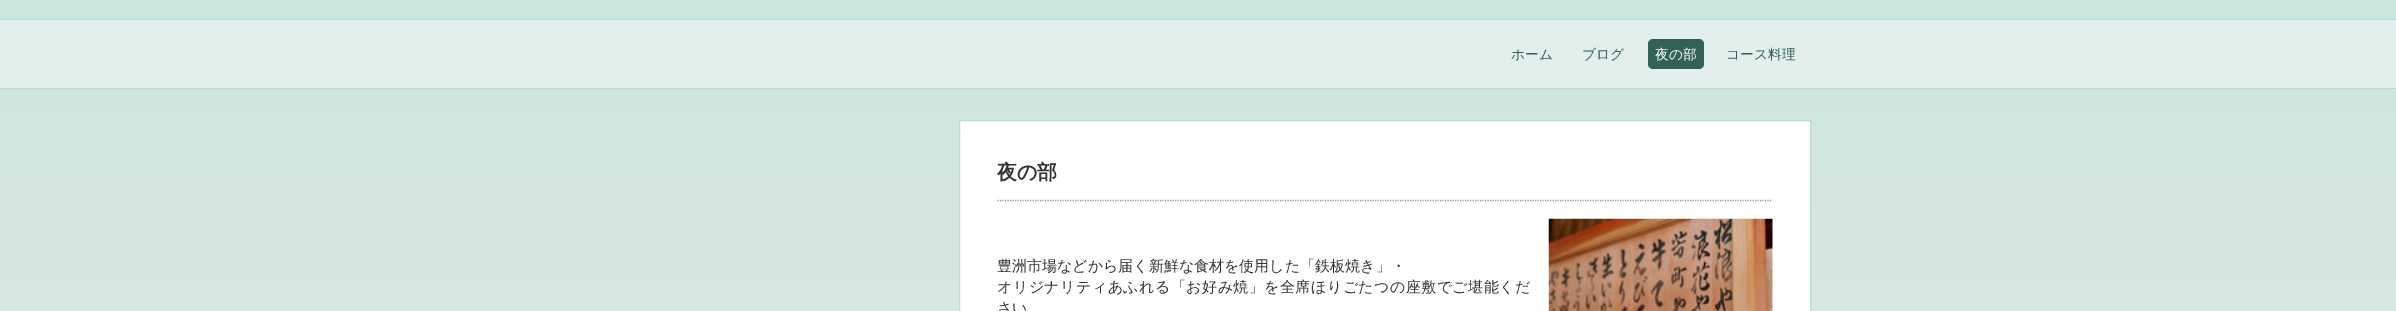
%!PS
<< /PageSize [2396 311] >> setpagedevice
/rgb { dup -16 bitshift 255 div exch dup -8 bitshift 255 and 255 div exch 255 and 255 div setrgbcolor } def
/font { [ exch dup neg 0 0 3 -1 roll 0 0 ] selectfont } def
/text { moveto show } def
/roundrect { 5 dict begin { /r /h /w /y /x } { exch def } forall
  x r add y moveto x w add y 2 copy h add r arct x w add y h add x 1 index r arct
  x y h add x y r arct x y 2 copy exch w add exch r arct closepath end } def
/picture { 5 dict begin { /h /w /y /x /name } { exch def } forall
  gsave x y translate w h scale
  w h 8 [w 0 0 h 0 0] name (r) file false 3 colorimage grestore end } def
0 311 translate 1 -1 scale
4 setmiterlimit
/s1 { /WenQuanYiZenHei-Medium 13.75 font 16#326155 rgb } def
/s2 { /WenQuanYiZenHei-Medium 13.75 font 16#FFFFFF rgb } def
/s3 { /WenQuanYiZenHei-Bold 20 font 16#333333 rgb } def
/s4 { /WenQuanYiZenHei-Medium 15 font 16#333333 rgb } def
16#FFFFFF rgb
0 0 2396 311 rectfill
(pic1.raw) 0 0 2396 311 picture
16#E2EFEC rgb
0 20 2396 68 rectfill
16#BADBD3 rgb
0 19 2396 1 rectfill
0 88 2396 1 rectfill
s1
(ホーム) 1511 59 text
(ブログ) 1582 59 text
1648 39 56 30 5 roundrect fill
s2
(夜の部) 1655 59 text
s1
(コース料理) 1726 59 text
16#FFFFFF rgb
959.5 120.5 moveto 1810.5 120.5 lineto 1810.5 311.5 lineto 959.5 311.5 lineto closepath gsave fill grestore
16#BCDCD3 rgb
stroke
s3
(夜の部) 997 179 text
16#999999 rgb
1.2 setlinewidth
[1.25 1.25] 0 setdash
997.5 200.5 moveto 1772.5 200.5 lineto stroke
s4
(豊洲市場などから届く新鮮な食材を使用した「鉄板焼き」・) 997 271 text
997 292 moveto 0.45 0 (オリジナリティあふれる「お好み焼」を全席ほりごたつの座敷でご堪能くだ) ashow
(さい) 997 313 text
(pic2.raw) 1548 218 225 93 picture
showpage
